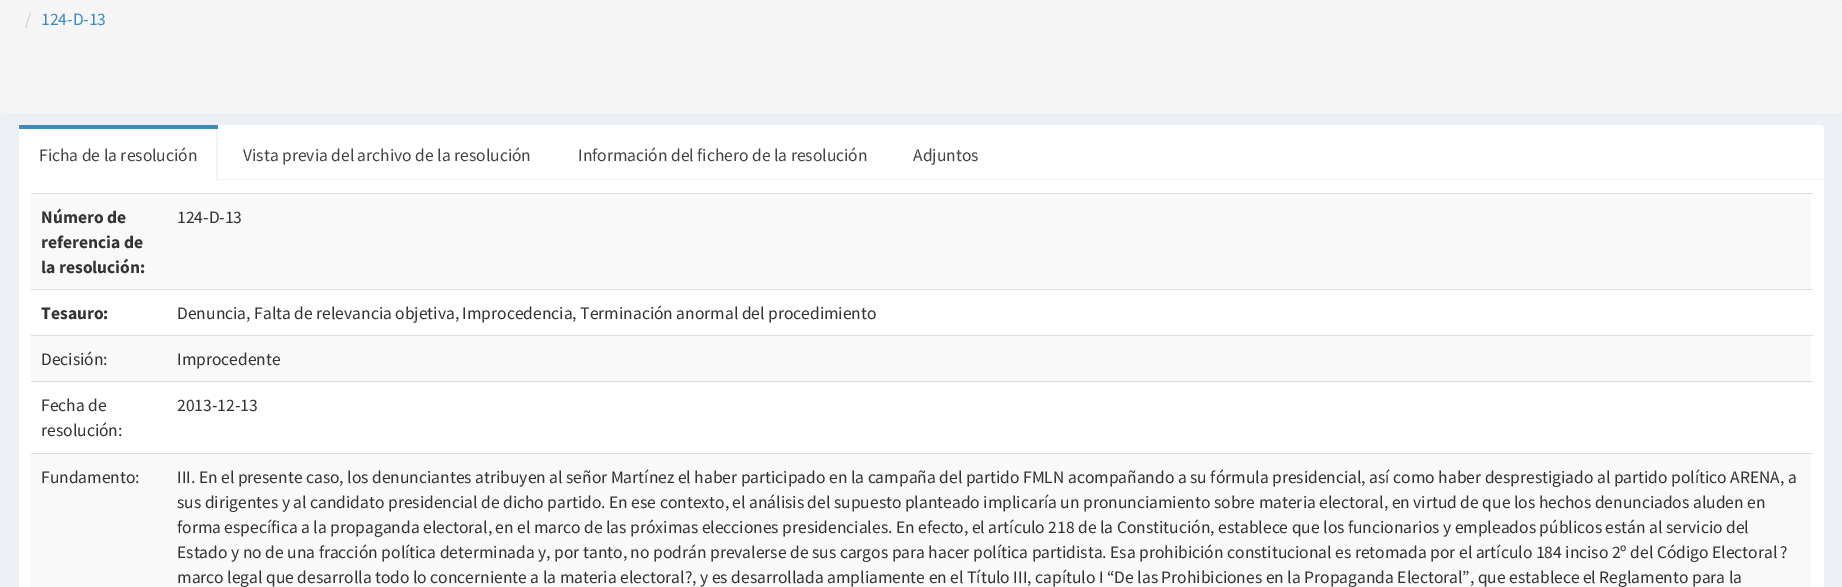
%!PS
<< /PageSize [1842 587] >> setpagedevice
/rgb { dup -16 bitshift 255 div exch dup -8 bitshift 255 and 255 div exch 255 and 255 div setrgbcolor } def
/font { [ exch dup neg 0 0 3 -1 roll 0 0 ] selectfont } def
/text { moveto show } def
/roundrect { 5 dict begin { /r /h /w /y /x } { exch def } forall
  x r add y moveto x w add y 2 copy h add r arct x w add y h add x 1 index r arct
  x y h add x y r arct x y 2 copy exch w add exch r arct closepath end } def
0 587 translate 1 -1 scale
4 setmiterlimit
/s1 { /SourceSansPro-Regular 17.5 font 16#CCCCCC rgb } def
/s2 { /SourceSansPro-Regular 17.5 font 16#3C8DBC rgb } def
/s3 { /SourceSansPro-Regular 17.5 font 16#444444 rgb } def
/s4 { /SourceSansPro-Bold 17.5 font 16#333333 rgb } def
/s5 { /SourceSansPro-Regular 17.5 font 16#333333 rgb } def
16#ECF0F5 rgb
0 0 1842 587 rectfill
16#F5F5F5 rgb
0 0 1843 113 5 roundrect fill
s1
(/) 25 25 text
s2
(124-D-13) 41 25 text
16#FFFFFF rgb
19 125 1805 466 4 roundrect fill
16#F4F4F4 rgb
218 179 1606 1 rectfill
16#3C8DBC rgb
19 125 199 4 rectfill
16#F4F4F4 rgb
218 129 moveto 218 181 lineto 216 180 lineto 216 130 lineto closepath fill
s3
(Ficha de la resolución) 39 161 text
(Vista previa del archivo de la resolución) 243 161 text
(Información del fichero de la resolución) 578 161 text
(Adjuntos) 913 161 text
16#F9F9F9 rgb
31 194 1780 95 rectfill
s4
(Número de) 41 223 text
(referencia de) 41 248 text
(la resolución:) 41 273 text
16#DDDDDD rgb
31 193 1782 1 rectfill
s5
(124-D-13) 177 223 text
s4
(Tesauro:) 41 319 text
16#DDDDDD rgb
31 289 1782 1 rectfill
s5
(Denuncia, Falta de relevancia objetiva, Improcedencia, Terminación anormal del procedimiento) 177 319 text
16#F9F9F9 rgb
31 336 1780 47 rectfill
s5
(Decisión:) 41 365 text
16#DDDDDD rgb
31 335 1782 1 rectfill
s5
(Improcedente) 177 365 text
(Fecha de) 41 411 text
(resolución:) 41 436 text
16#DDDDDD rgb
31 381 1782 1 rectfill
s5
(2013-12-13) 177 411 text
16#F9F9F9 rgb
31 454 1780 133 rectfill
s5
(Fundamento:) 41 483 text
16#DDDDDD rgb
31 453 1782 1 rectfill
s5
(III. En el presente caso, los denunciantes atribuyen al señor Martínez el haber participado en la campaña del partido FMLN acompañando a su fórmula presidencial, así como haber desprestigiado al partido político ARENA, a) 177 483 text
(sus dirigentes y al candidato presidencial de dicho partido. En ese contexto, el análisis del supuesto planteado implicaría un pronunciamiento sobre materia electoral, en virtud de que los hechos denunciados aluden en) 177 508 text
(forma específica a la propaganda electoral, en el marco de las próximas elecciones presidenciales. En efecto, el artículo 218 de la Constitución, establece que los funcionarios y empleados públicos están al servicio del) 177 533 text
(Estado y no de una fracción política determinada y, por tanto, no podrán prevalerse de sus cargos para hacer política partidista. Esa prohibición constitucional es retomada por el artículo 184 inciso 2º del Código Electoral ?) 177 558 text
(marco legal que desarrolla todo lo concerniente a la materia electoral?, y es desarrollada ampliamente en el Título III, capítulo I “De las Prohibiciones en la Propaganda Electoral”, que establece el Reglamento para la) 177 583 text
showpage
